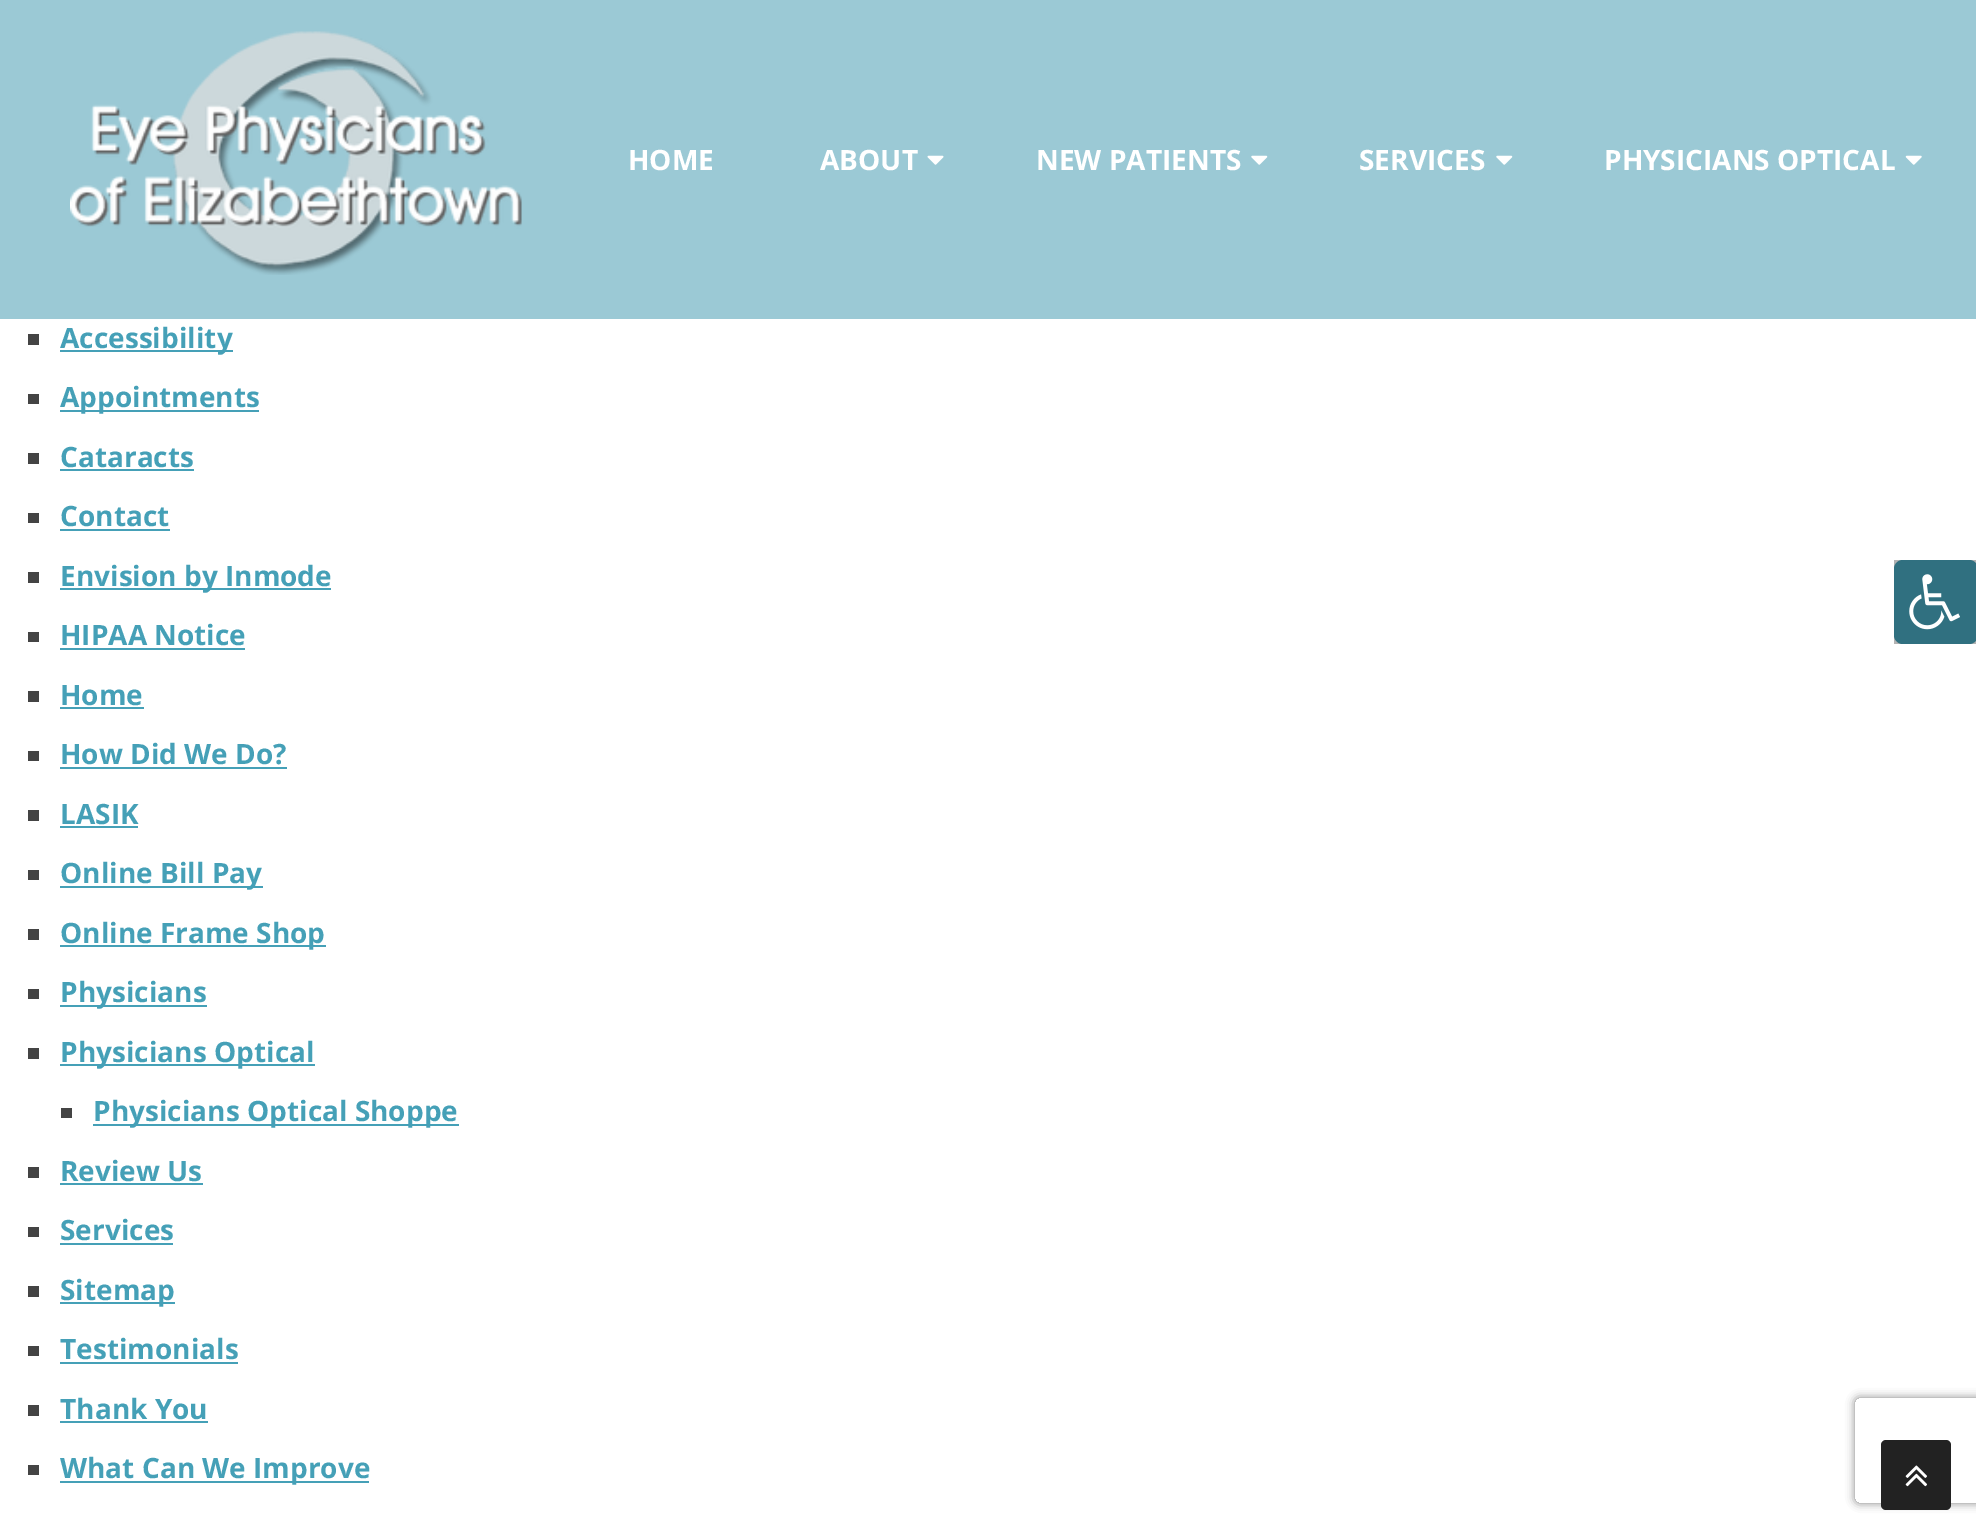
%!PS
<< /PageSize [1976 1527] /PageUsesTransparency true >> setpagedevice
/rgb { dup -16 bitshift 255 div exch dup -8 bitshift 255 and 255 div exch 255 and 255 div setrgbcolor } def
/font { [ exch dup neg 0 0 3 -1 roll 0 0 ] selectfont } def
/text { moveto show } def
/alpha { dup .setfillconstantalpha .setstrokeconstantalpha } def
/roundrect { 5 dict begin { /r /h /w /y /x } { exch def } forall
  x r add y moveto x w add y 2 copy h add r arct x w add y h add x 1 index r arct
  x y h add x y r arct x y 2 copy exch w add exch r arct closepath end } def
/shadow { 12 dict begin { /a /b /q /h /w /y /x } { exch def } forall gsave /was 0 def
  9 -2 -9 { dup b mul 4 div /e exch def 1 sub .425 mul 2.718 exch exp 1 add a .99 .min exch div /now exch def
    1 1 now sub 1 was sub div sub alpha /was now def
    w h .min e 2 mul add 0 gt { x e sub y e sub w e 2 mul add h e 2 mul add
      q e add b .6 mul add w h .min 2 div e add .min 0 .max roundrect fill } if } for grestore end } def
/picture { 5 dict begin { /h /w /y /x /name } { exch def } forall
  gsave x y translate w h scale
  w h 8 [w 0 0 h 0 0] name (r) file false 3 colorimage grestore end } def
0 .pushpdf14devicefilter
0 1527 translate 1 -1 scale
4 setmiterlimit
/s1 { /OpenSans-Bold 28 font 16#FFFFFF rgb } def
/s2 { /OpenSans-Bold 28 font 16#45A0B7 rgb } def
16#FFFFFF rgb
0 0 1976 1527 rectfill
16#B3B3B3 rgb
1894 560 82 84 rectfill
16#9BC9D5 rgb
0 0 1976 319 rectfill
(pic1.raw) 70 31 452 244 picture
s1
(HOME) 628 170 text
(ABOUT) 820 170 text
(pic2.raw) 927 155 17 10 picture
(NEW PATIENTS) 1036 170 text
(pic3.raw) 1251 155 17 10 picture
(SERVICES) 1359 170 text
(pic3.raw) 1496 155 17 10 picture
(PHYSICIANS OPTICAL) 1604 170 text
(pic4.raw) 1905 155 17 10 picture
16#444444 rgb
28 334 11 11 rectfill
16#45A0B7 rgb
60 350 173 2 rectfill
(Accessibility) 60 348 text
16#444444 rgb
28 394 11 10 rectfill
16#45A0B7 rgb
60 410 199 2 rectfill
(Appointments) 60 407 text
16#444444 rgb
28 453 11 11 rectfill
s2
(Cataracts) 60 467 text
60 469 134 2 rectfill
16#444444 rgb
28 513 11 10 rectfill
s2
(Contact) 60 526 text
60 529 110 2 rectfill
16#444444 rgb
28 572 11 11 rectfill
16#45A0B7 rgb
60 588 271 2 rectfill
(Envision by Inmode) 60 586 text
16#444444 rgb
28 632 11 10 rectfill
s2
(HIPAA Notice) 60 645 text
60 648 185 2 rectfill
16#444444 rgb
28 691 11 11 rectfill
s2
(Home) 60 705 text
60 707 84 2 rectfill
16#444444 rgb
28 751 11 10 rectfill
s2
(How Did We Do?) 60 764 text
60 767 227 2 rectfill
16#444444 rgb
28 810 11 11 rectfill
s2
(LASIK) 60 824 text
60 826 78 2 rectfill
16#444444 rgb
28 870 11 10 rectfill
16#45A0B7 rgb
60 886 203 2 rectfill
(Online Bill Pay) 60 883 text
16#444444 rgb
28 929 11 11 rectfill
16#45A0B7 rgb
60 945 266 2 rectfill
(Online Frame Shop) 60 943 text
16#444444 rgb
28 989 11 10 rectfill
16#45A0B7 rgb
60 1005 147 2 rectfill
(Physicians) 60 1002 text
16#444444 rgb
28 1048 11 11 rectfill
16#45A0B7 rgb
60 1064 255 2 rectfill
(Physicians Optical) 60 1062 text
16#444444 rgb
61 1108 11 10 rectfill
16#45A0B7 rgb
93 1124 366 2 rectfill
(Physicians Optical Shoppe) 93 1121 text
16#444444 rgb
28 1167 11 11 rectfill
s2
(Review Us) 60 1181 text
60 1183 143 2 rectfill
16#444444 rgb
28 1227 11 10 rectfill
s2
(Services) 60 1240 text
60 1243 113 2 rectfill
16#444444 rgb
28 1286 11 11 rectfill
16#45A0B7 rgb
60 1302 115 2 rectfill
(Sitemap) 60 1300 text
16#444444 rgb
28 1346 11 10 rectfill
s2
(Testimonials) 60 1359 text
60 1362 178 2 rectfill
16#444444 rgb
28 1405 11 11 rectfill
s2
(Thank You) 60 1419 text
60 1421 148 2 rectfill
16#444444 rgb
28 1465 11 10 rectfill
16#45A0B7 rgb
60 1481 309 2 rectfill
(What Can We Improve) 60 1478 text
16#307080 rgb
1894 560 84 84 9 roundrect fill
(pic5.raw) 1909 574 51 56 picture
gsave
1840 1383 moveto 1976 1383 lineto 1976 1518 lineto 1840 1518 lineto closepath 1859 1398 moveto 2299 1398 lineto 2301 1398 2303 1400 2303 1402 curveto 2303 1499 lineto 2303 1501 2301 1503 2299 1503 curveto 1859 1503 lineto 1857 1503 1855 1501 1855 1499 curveto 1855 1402 lineto 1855 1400 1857 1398 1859 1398 curveto closepath eoclip newpath
16#808080 rgb
1855 1398 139 105 4 4.5 1 shadow
grestore
16#222222 rgb
1881 1440 70 70 5 roundrect fill
(pic6.raw) 1905 1465 22 22 picture
.poppdf14devicefilter showpage
